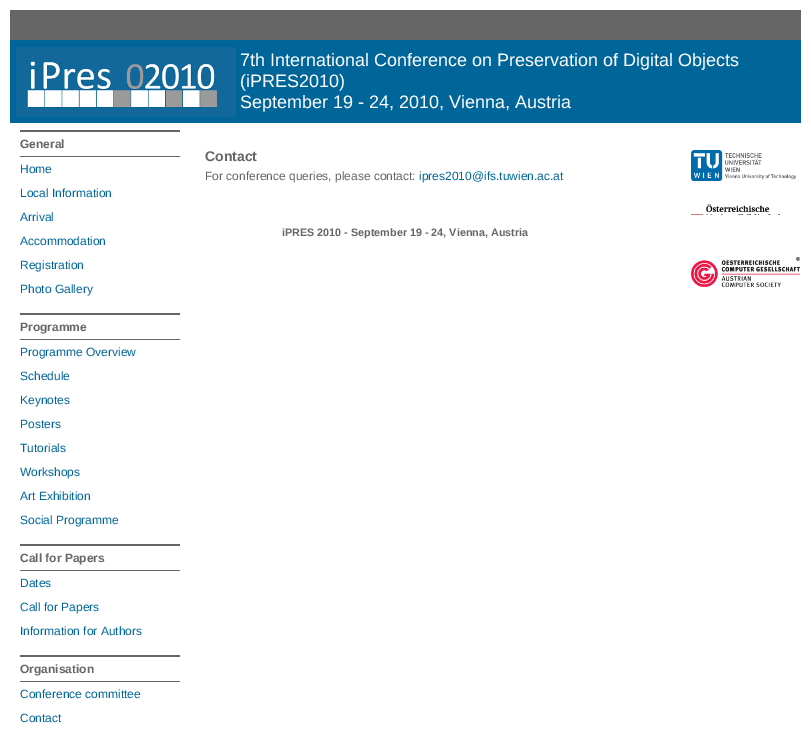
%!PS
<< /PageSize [811 736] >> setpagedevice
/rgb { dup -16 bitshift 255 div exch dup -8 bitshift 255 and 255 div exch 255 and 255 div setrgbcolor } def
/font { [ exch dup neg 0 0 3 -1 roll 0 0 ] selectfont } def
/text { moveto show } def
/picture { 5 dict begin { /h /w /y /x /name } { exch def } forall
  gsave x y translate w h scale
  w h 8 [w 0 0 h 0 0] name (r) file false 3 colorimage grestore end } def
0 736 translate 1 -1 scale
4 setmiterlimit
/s1 { /LiberationSans-Regular 18 font 16#FFFFFF rgb } def
/s2 { /LiberationSans-Bold 12 font 16#666666 rgb } def
/s3 { /LiberationSans-Regular 12 font 16#006699 rgb } def
/s4 { /LiberationSans-Bold 14 font 16#666666 rgb } def
/s5 { /LiberationSans-Regular 12 font 16#666666 rgb } def
/s6 { /LiberationSans-Bold 10.8 font 16#666666 rgb } def
16#FFFFFF rgb
0 0 811 736 rectfill
16#666666 rgb
10 10 791 30 rectfill
16#006699 rgb
10 40 791 83 rectfill
(pic1.raw) 16 47 220 70 picture
s1
(7th International Conference on Preservation of Digital Objects) 240 66 text
(\(iPRES2010\)) 240 87 text
(September 19 - 24, 2010, Vienna, Austria) 240 108 text
16#666666 rgb
20 130 160 2 rectfill
20 156 160 1 rectfill
s2
(General) 20 148 text
s3
(Home) 20 173 text
(Local Information) 20 197 text
(Arrival) 20 221 text
(Accommodation) 20 245 text
(Registration) 20 269 text
(Photo Gallery) 20 293 text
16#666666 rgb
20 313 160 2 rectfill
20 339 160 1 rectfill
s2
(Programme) 20 331 text
s3
(Programme Overview) 20 356 text
(Schedule) 20 380 text
(Keynotes) 20 404 text
(Posters) 20 428 text
(Tutorials) 20 452 text
(Workshops) 20 476 text
(Art Exhibition) 20 500 text
(Social Programme) 20 524 text
16#666666 rgb
20 544 160 2 rectfill
20 570 160 1 rectfill
s2
(Call for Papers) 20 562 text
s3
(Dates) 20 587 text
(Call for Papers) 20 611 text
(Information for Authors) 20 635 text
16#666666 rgb
20 655 160 2 rectfill
20 681 160 1 rectfill
s2
(Organisation) 20 673 text
s3
(Conference committee) 20 698 text
(Contact) 20 722 text
s4
(Contact) 205 161 text
s5
(For conference queries, please contact:) 205 180 text
s3
(ipres2010@ifs.tuwien.ac.at) 419 180 text
(pic2.raw) 691 150 105 31 picture
(pic3.raw) 691 204 90 11 picture
(pic4.raw) 691 257 109 30 picture
s6
(iPRES 2010 - September 19 - 24, Vienna, Austria) 282 236 text
showpage
